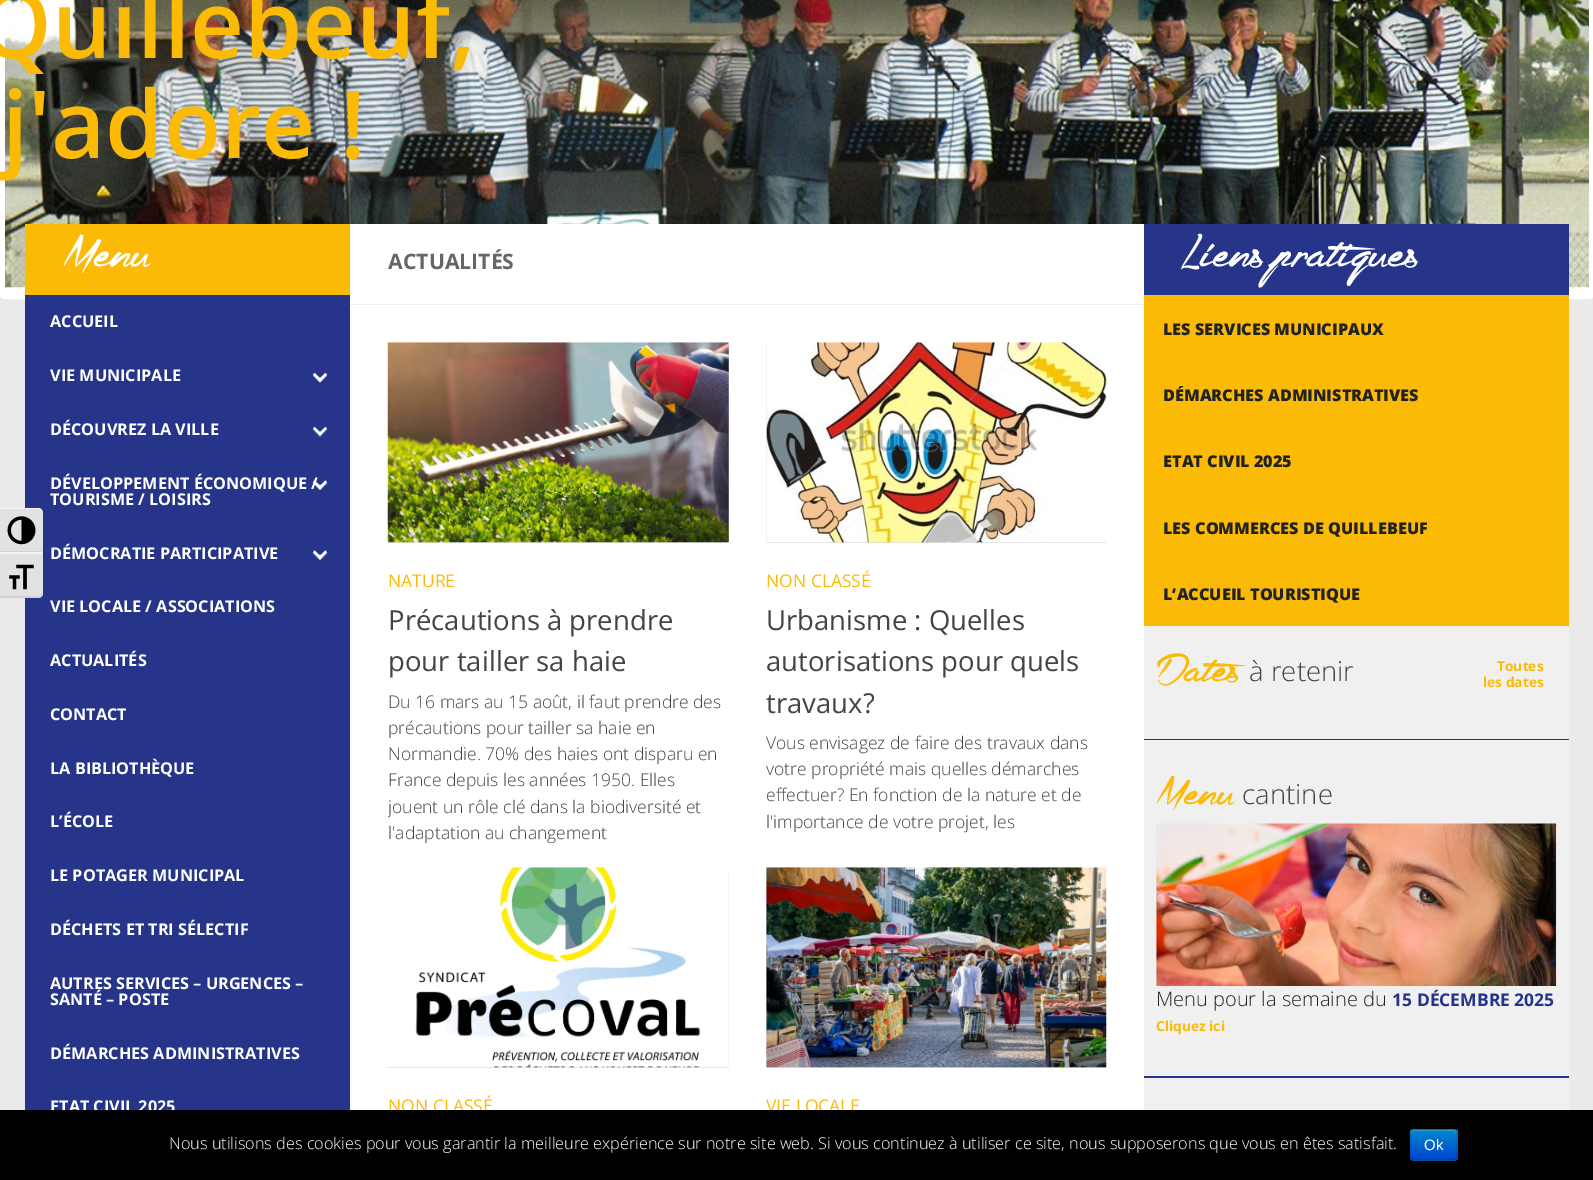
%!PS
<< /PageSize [1593 1180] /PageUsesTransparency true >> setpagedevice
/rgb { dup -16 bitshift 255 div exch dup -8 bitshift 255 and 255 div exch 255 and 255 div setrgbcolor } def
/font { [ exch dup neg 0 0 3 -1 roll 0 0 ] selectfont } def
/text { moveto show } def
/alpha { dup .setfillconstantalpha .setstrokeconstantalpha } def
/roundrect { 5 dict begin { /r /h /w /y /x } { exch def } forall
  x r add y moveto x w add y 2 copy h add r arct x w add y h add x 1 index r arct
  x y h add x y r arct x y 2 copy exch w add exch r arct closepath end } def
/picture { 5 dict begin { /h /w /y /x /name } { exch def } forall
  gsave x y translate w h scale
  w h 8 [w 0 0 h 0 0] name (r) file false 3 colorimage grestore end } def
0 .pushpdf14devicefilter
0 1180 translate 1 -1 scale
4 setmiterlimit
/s1 { /OpenSans-SemiBold 93.75 font 16#FBBA06 rgb } def
/s2 { /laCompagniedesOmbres-Regular 69 font 16#FFFFFF rgb } def
/s3 { /OpenSans-Bold 16.25 font 16#FFFFFF rgb } def
/s4 { /OpenSans-Bold 21.25 font 16#666666 rgb } def
/s5 { /OpenSans-Regular 17.5 font 16#FBBA06 rgb } def
/s6 { /OpenSans-Regular 27.5 font 16#444444 rgb } def
/s7 { /OpenSans-Light 17.5 font 16#444444 rgb } def
/s8 { /OpenSans-ExtraBold 16.25 font 16#222222 rgb } def
/s9 { /laCompagniedesOmbres-Regular 62 font 16#FBBA06 rgb } def
/s10 { /OpenSans-Light 27.5 font 16#444444 rgb } def
/s11 { /OpenSans-Bold 13.75 font 16#FBBA06 rgb } def
/s12 { /OpenSans-Light 20 font 16#222222 rgb } def
/s13 { /OpenSans-Bold 17.5 font 16#26358A rgb } def
/s14 { /OpenSans-Light 16.25 font 16#FFFFFF rgb } def
/s15 { /LiberationSans-Regular 15 font 16#FFFFFF rgb } def
16#EAEAEA rgb
0 0 1593 1180 rectfill
16#FFFFFF rgb
2.5 -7.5 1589 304 2.5 roundrect gsave fill grestore
5 setlinewidth
stroke
(pic3.raw) 5 0 1584 288 picture
s1
(Quillebeuf,) -22 58 text
(j'adore !) 2 158 text
16#26358A rgb
25 295 325 815 rectfill
16#E2E2E2 rgb
0 508 moveto 38 508 lineto 41 508 43 510 43 513 curveto 43 553 lineto 0 553 lineto closepath fill
16#F5F5F5 rgb
0 509 moveto 38 509 lineto 40 509 42 510 42 512 curveto 42 510 40 508 38 508 curveto 0 508 lineto closepath fill
16#D2D2D2 rgb
0 551 42 1 rectfill
(pic1.raw) 7 516 29 29 picture
16#E2E2E2 rgb
0 553 moveto 43 553 lineto 43 593 lineto 43 596 41 598 38 598 curveto 0 598 lineto closepath fill
16#F5F5F5 rgb
0 552 42 2 rectfill
16#D2D2D2 rgb
39 598 moveto 41 597 42 594 42 592 curveto 42 595 40 596 38 596 curveto 0 596 lineto 0 598 lineto closepath fill
(pic2.raw) 9 564 25 26 picture
16#FBBA06 rgb
25 224 325 71 rectfill
s2
(Menu) 63 266 text
s3
(ACCUEIL) 50 327 text
(VIE MUNICIPALE) 50 381 text
16#727CB3 rgb
320 383 moveto 313 376 lineto 314.5 374.5 lineto 320 379.5 lineto closepath 327 376 moveto 320 383 lineto 320 379.5 lineto 325.5 374.5 lineto closepath fill
16#FFFFFF rgb
320 382 moveto 313 375 lineto 314.5 373 lineto 322 380 lineto closepath fill
320 382 moveto 318 380 lineto 325.5 373 lineto 327 375 lineto closepath fill
(DÉCOUVREZ LA VILLE) 50 435 text
16#727CB3 rgb
320 437 moveto 313 430 lineto 314.5 428 lineto 320 433.5 lineto closepath 327 430 moveto 320 437 lineto 320 433.5 lineto 325.5 428 lineto closepath fill
16#FFFFFF rgb
320 435.5 moveto 313 428.5 lineto 314.5 427 lineto 322 434 lineto closepath fill
320 435.5 moveto 318 434 lineto 325.5 427 lineto 327 428.5 lineto closepath fill
(DÉVELOPPEMENT ÉCONOMIQUE /) 50 489 text
0.35 alpha
320 490.5 moveto 313 483.5 lineto 314.5 482 lineto 320 487 lineto closepath fill
1 alpha
16#727CB3 rgb
327 483.5 moveto 320 490.5 lineto 320 487 lineto 325.5 482 lineto closepath fill
16#FFFFFF rgb
320 489.5 moveto 313 482.5 lineto 314.5 480.5 lineto 322 487.5 lineto closepath fill
320 489.5 moveto 318 487.5 lineto 325.5 480.5 lineto 327 482.5 lineto closepath fill
(TOURISME / LOISIRS) 50 505 text
(DÉMOCRATIE PARTICIPATIVE) 50 559 text
16#727CB3 rgb
320 560.5 moveto 313 553.5 lineto 314.5 552 lineto 320 557 lineto closepath 327 553.5 moveto 320 560.5 lineto 320 557 lineto 325.5 552 lineto closepath fill
16#FFFFFF rgb
320 559.5 moveto 313 552.5 lineto 314.5 550.5 lineto 322 557.5 lineto closepath fill
320 559.5 moveto 318 557.5 lineto 325.5 550.5 lineto 327 552.5 lineto closepath fill
(VIE LOCALE / ASSOCIATIONS) 50 612 text
(ACTUALITÉS) 50 666 text
(CONTACT) 50 720 text
(LA BIBLIOTHÈQUE) 50 774 text
(L’ÉCOLE) 50 827 text
(LE POTAGER MUNICIPAL) 50 881 text
(DÉCHETS ET TRI SÉLECTIF) 50 935 text
(AUTRES SERVICES – URGENCES –) 50 989 text
(SANTÉ – POSTE) 50 1005 text
(DÉMARCHES ADMINISTRATIVES) 50 1059 text
(ETAT CIVIL 2025) 50 1112 text
350 224 794 886 rectfill
16#EEEEEE rgb
350 304 794 1 rectfill
s4
(ACTUALITÉS) 388 269 text
16#DFDFDF rgb
388 343 341 200 rectfill
(pic4.raw) 387 342 342 201 picture
s5
(NATURE) 388 587 text
s6
(Précautions à prendre) 388 630 text
(pour tailler sa haie) 388 671 text
s7
(Du 16 mars au 15 août, il faut prendre des) 388 708 text
(précautions pour tailler sa haie en) 388 734 text
(Normandie. 70% des haies ont disparu en) 388 760 text
(France depuis les années 1950. Elles) 388 786 text
gsave
388 343 378 500 rectclip
(jouent un rôle clé dans la biodiversité et) 388 813 text
(l'adaptation au changement) 388 839 text
grestore
16#DFDFDF rgb
766 343 340 200 rectfill
(pic5.raw) 766 342 341 201 picture
s5
(NON CLASSÉ) 766 587 text
s6
(Urbanisme : Quelles) 766 630 text
(autorisations pour quels) 766 671 text
(travaux?) 766 713 text
s7
(Vous envisagez de faire des travaux dans) 766 749 text
(votre propriété mais quelles démarches) 766 775 text
(effectuer? En fonction de la nature et de) 766 801 text
(l'importance de votre projet, les) 766 828 text
16#DFDFDF rgb
388 868 341 200 rectfill
(pic6.raw) 388 867 341 201 picture
s5
(NON CLASSÉ) 388 1112 text
16#DFDFDF rgb
766 868 340 200 rectfill
(pic7.raw) 766 867 341 201 picture
s5
(VIE LOCALE) 766 1112 text
16#F0F0F0 rgb
1144 626 425 484 rectfill
16#26358A rgb
1144 224 425 71 rectfill
s2
(Liens pratiques) 1181 266 text
16#FBBA06 rgb
1144 295 425 331 rectfill
s8
(LES SERVICES MUNICIPAUX) 1163 335 text
(DÉMARCHES ADMINISTRATIVES) 1163 401 text
(ETAT CIVIL 2025) 1163 467 text
(LES COMMERCES DE QUILLEBEUF) 1163 534 text
(L’ACCUEIL TOURISTIQUE) 1163 600 text
s9
(Dates) 1156 681 text
s10
(à retenir) 1249 681 text
s11
(Toutes) 1497 671 text
(les dates) 1483 687 text
16#26358A rgb
1144 739 425 1 rectfill
s9
(Menu) 1156 804 text
s10
(cantine) 1242 804 text
(pic8.raw) 1156 823 401 163 picture
s12
(Menu pour la semaine du) 1156 1006 text
s13
(15 DÉCEMBRE 2025) 1392 1006 text
s11
(Cliquez ici) 1156 1031 text
16#26358A rgb
1144 1076 425 2 rectfill
16#000000 rgb
0 1110 1593 70 rectfill
s14
(Nous utilisons des cookies pour vous garantir la meilleure expérience sur notre site web. Si vous continuez à utiliser ce site, nous supposerons que vous en êtes satisfait.) 169 1149 text
16#006DCC rgb
1410 1129 48 32 4 roundrect fill
gsave
1410 1129 48 32 4 roundrect clip newpath
gsave 1410 1130 moveto 1458 1130 lineto 1458 1160 lineto 1410 1160 lineto closepath clip newpath
<< /ShadingType 2 /ColorSpace /DeviceRGB /Coords [1434 1130 1434 1160] /Extend [true true] /Function << /FunctionType 2 /Domain [0 1] /C0 [0 0.533 0.8] /C1 [0 0.267 0.8] /N 1 >> >> shfill grestore
grestore
16#339FD6 rgb
1414 1131 moveto 1454 1131 lineto 1455 1131 1456 1132 1456 1134 curveto 1456 1128 1452 1130 1447 1130 curveto 1420 1130 lineto 1415 1130 1411 1128 1411 1134 curveto 1411 1132 1412 1131 1414 1131 curveto closepath fill
0.25 alpha
16#000000 rgb
1.2 setlinewidth
1456 1159.5 moveto 1454 1160.5 lineto 1414 1160.5 lineto 1411.5 1159.5 lineto stroke
0.1 alpha
1411.5 1159.5 moveto 1409.5 1157.5 1410.5 1148 1410.5 1145 curveto 1410.5 1130.5 1407 1129.5 1420.5 1129.5 curveto 1447 1129.5 lineto 1460.5 1129.5 1457 1130.5 1457 1145 curveto 1457 1148 1458 1157.5 1456 1159.5 curveto stroke
1 alpha
s15
(Ok) 1424 1150 text
.poppdf14devicefilter showpage
